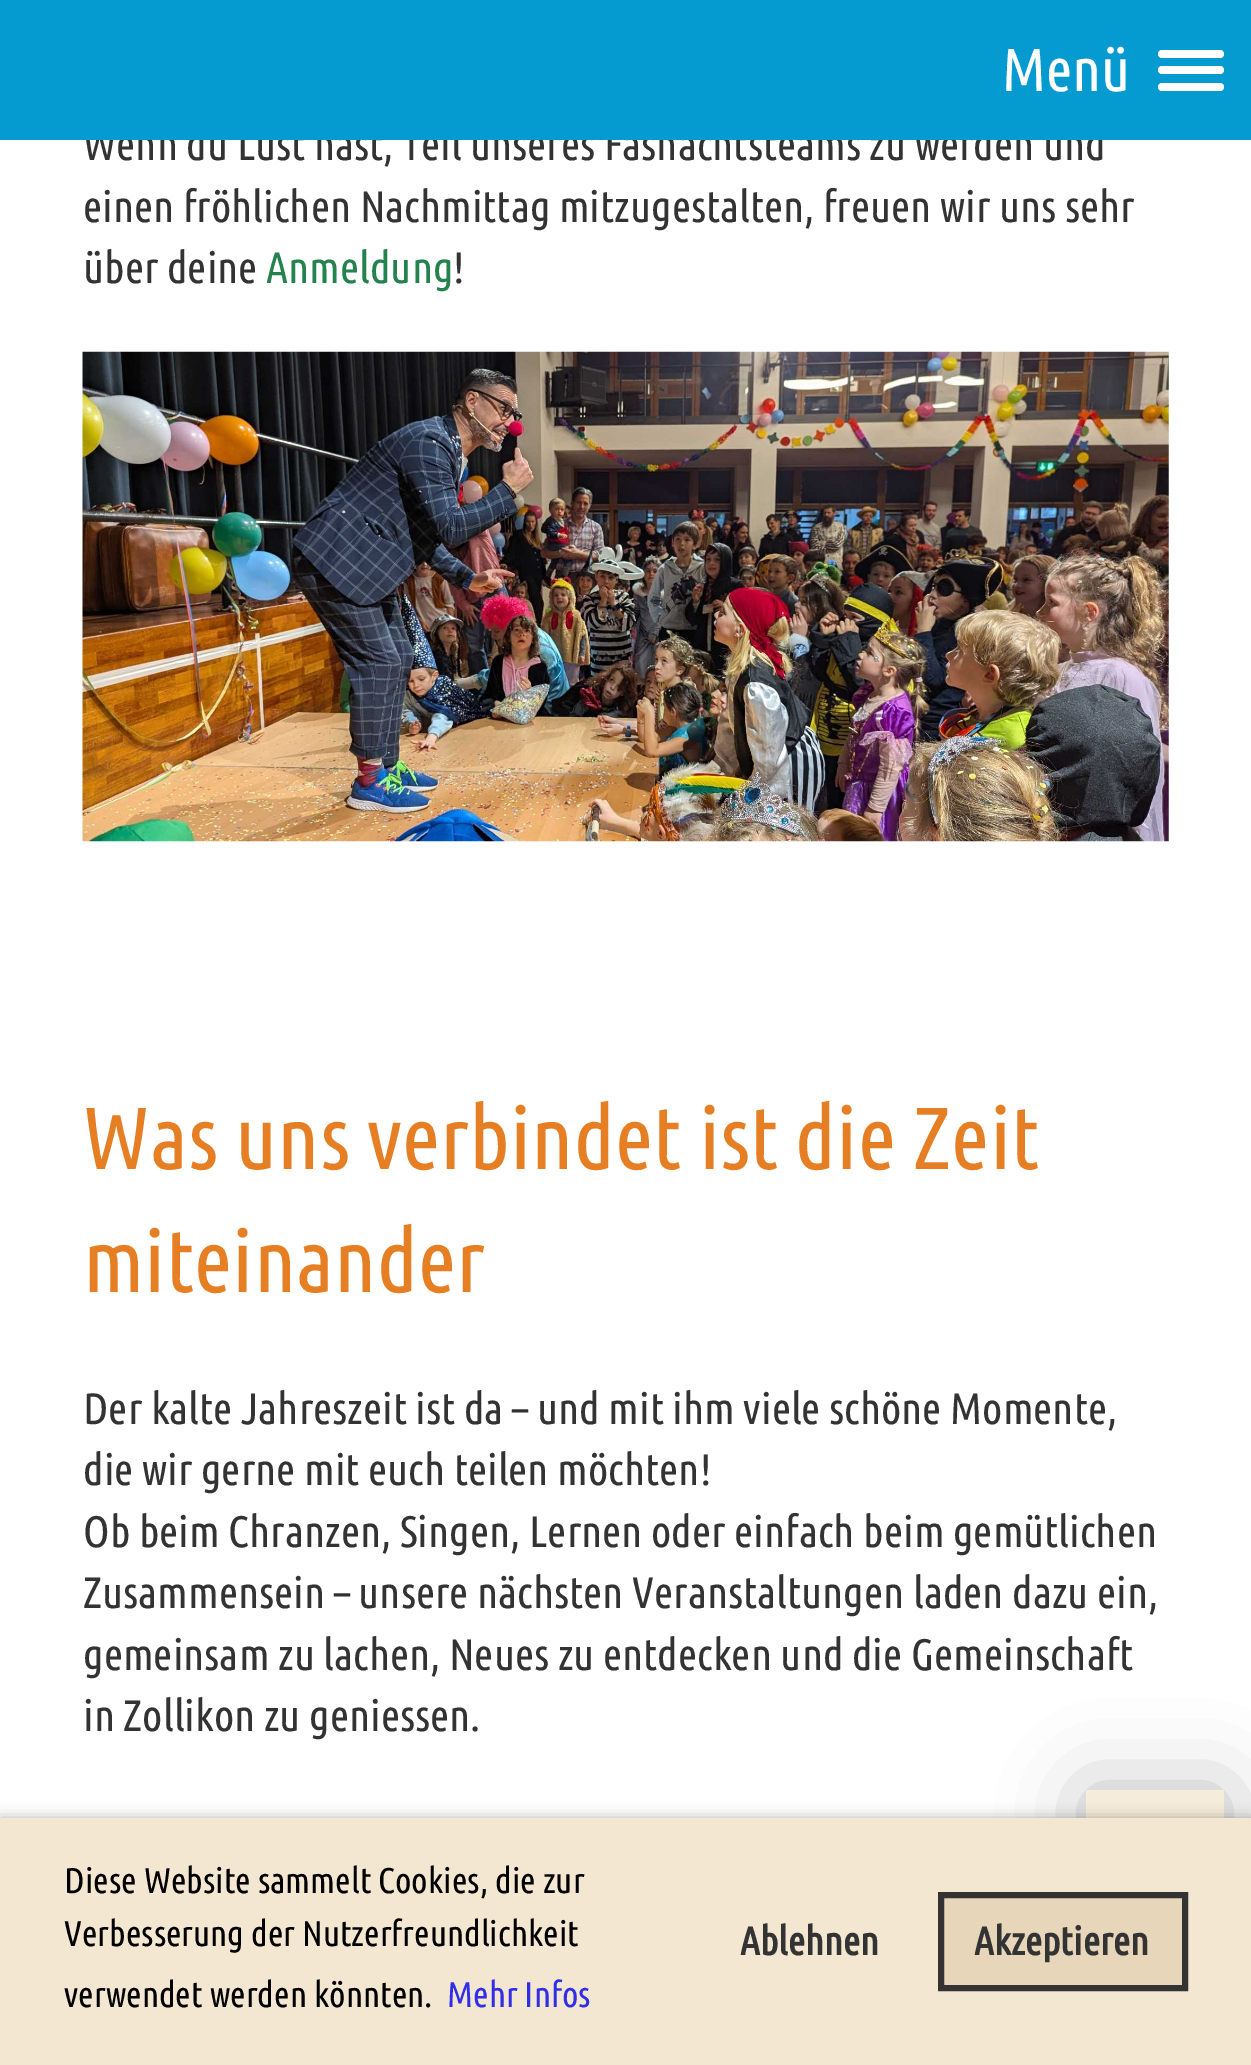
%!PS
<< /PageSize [1251 2065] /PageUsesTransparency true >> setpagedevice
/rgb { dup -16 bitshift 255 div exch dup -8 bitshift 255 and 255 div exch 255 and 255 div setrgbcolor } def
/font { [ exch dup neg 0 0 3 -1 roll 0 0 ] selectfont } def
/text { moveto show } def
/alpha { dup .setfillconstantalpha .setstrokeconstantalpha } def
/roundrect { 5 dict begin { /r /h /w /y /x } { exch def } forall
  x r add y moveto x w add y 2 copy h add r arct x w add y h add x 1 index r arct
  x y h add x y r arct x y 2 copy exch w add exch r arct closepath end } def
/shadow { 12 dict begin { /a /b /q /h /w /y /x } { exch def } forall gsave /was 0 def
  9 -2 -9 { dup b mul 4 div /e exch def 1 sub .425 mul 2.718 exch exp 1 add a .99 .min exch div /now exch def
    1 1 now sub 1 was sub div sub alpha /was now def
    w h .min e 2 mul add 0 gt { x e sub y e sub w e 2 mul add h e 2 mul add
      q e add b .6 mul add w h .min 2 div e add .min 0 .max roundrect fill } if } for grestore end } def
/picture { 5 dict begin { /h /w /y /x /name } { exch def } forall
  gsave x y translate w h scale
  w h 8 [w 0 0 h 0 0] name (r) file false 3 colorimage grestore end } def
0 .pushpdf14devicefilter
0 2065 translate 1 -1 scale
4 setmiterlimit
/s1 { /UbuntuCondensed-Regular 44 font 16#333333 rgb } def
/s2 { /UbuntuCondensed-Regular 60.5 font 16#FFFFFF rgb } def
/s3 { /UbuntuCondensed-Regular 44 font 16#25814E rgb } def
/s4 { /UbuntuCondensed-Regular 88 font 16#E67E23 rgb } def
/s5 { /UbuntuCondensed-Regular 35.75 font 16#000000 rgb } def
/s6 { /UbuntuCondensed-Regular 35.75 font 16#312EE8 rgb } def
/s7 { /UbuntuCondensed-Bold 39.5 font 16#333333 rgb } def
16#FFFFFF rgb
0 0 1251 2065 rectfill
s1
(Wenn du Lust hast, Teil unseres Fasnachtsteams zu werden und) 83 160 text
16#059BD0 rgb
0 0 1251 140 rectfill
s2
(Menü) 1002 91 text
1158 50 66 8 4 roundrect fill
1158 66 66 8 4 roundrect fill
1158 83 66 8 4 roundrect fill
s1
(einen fröhlichen Nachmittag mitzugestalten, freuen wir uns sehr) 83 222 text
(über deine) 83 283 text
s3
(Anmeldung) 266 283 text
s1
(!) 453 283 text
(pic1.raw) 82 351 1087 491 picture
s4
(Was uns verbindet ist die Zeit) 83 1169 text
(miteinander) 83 1292 text
s1
(Der kalte Jahreszeit ist da – und mit ihm viele schöne Momente,) 83 1424 text
(die wir gerne mit euch teilen möchten!) 83 1485 text
(Ob beim Chranzen, Singen, Lernen oder einfach beim gemütlichen) 83 1547 text
(Zusammensein – unsere nächsten Veranstaltungen laden dazu ein,) 83 1608 text
(gemeinsam zu lachen, Neues zu entdecken und die Gemeinschaft) 83 1670 text
(in Zollikon zu geniessen.) 83 1731 text
gsave
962 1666 moveto 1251 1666 lineto 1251 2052 lineto 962 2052 lineto closepath 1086 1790 moveto 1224 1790 lineto 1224 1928 lineto 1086 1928 lineto closepath eoclip newpath
16#000000 rgb
1086 1790 138 138 0 41 0.25 shadow
grestore
0.8 alpha
16#F4E7D2 rgb
1086 1790 138 28 rectfill
1 alpha
16#000000 rgb
0 1818 1251 247 0 7 0.3 shadow
16#F4E7D2 rgb
0 1818 1251 247 rectfill
s5
(Diese Website sammelt Cookies, die zur) 64 1893 text
(Verbesserung der Nutzerfreundlichkeit) 64 1946 text
(verwendet werden könnten.) 64 2007 text
s6
(Mehr Infos) 447 2007 text
s7
(Ablehnen) 740 1955 text
16#E8D6BA rgb
941 1895 moveto 1185 1895 lineto 1185 1988 lineto 941 1988 lineto closepath gsave fill grestore
16#333333 rgb
6 setlinewidth
stroke
(Akzeptieren) 974 1955 text
.poppdf14devicefilter showpage
